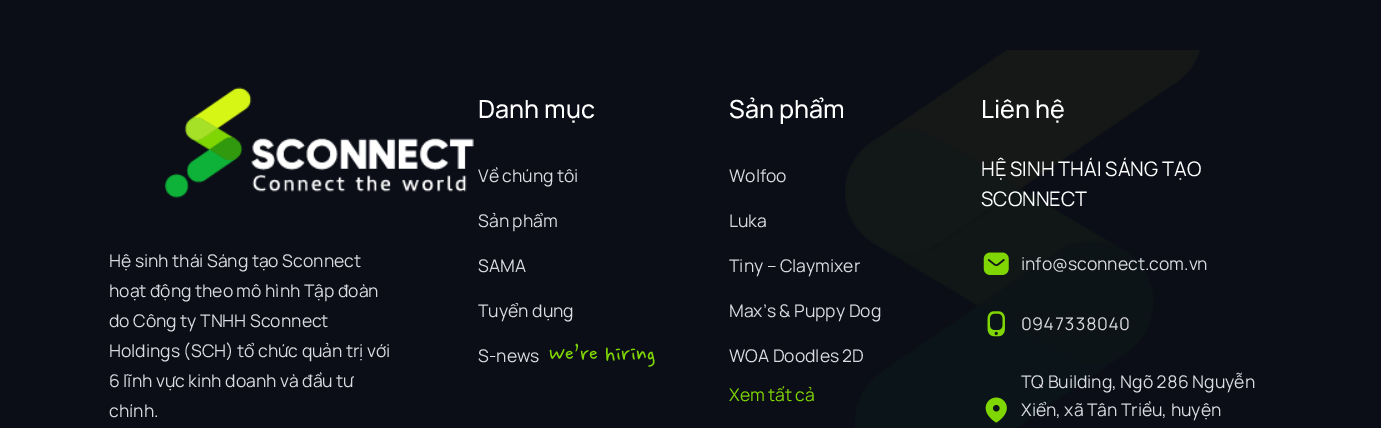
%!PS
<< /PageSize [1381 428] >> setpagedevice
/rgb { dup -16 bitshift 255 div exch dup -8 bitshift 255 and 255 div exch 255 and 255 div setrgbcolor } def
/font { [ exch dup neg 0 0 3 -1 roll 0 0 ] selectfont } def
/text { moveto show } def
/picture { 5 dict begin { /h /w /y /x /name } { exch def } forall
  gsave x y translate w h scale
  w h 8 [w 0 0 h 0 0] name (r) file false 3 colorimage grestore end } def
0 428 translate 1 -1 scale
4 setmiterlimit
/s1 { /Manrope-Regular 17.5 font 16#D9DBE1 rgb } def
/s2 { /Manrope-Medium 25 font 16#FFFFFF rgb } def
/s3 { /NanumPen-Regular 25 font 16#7FD603 rgb } def
/s4 { /Manrope-Regular 17.5 font 16#7FD603 rgb } def
/s5 { /Manrope-Regular 20 font 16#FFFFFF rgb } def
/s6 { /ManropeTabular-Regular 17.5 font 16#D9DBE1 rgb } def
16#0B0D17 rgb
0 0 1381 428 rectfill
(pic1.raw) 845 50 355 378 picture
(pic2.raw) 164 87 310 111 picture
s1
(Hệ sinh thái Sáng tạo Sconnect) 109 267 text
(hoạt động theo mô hình Tập đoàn) 109 297 text
(do Công ty TNHH Sconnect) 109 327 text
(Holdings \(SCH\) tổ chức quản trị với) 109 357 text
(6 lĩnh vực kinh doanh và đầu tư) 109 387 text
(chính.) 109 417 text
s2
(Danh mục) 478 118 text
s1
(Về chúng tôi) 478 182 text
(Sản phẩm) 478 227 text
(SAMA) 478 272 text
(Tuyển dụng) 478 317 text
(S-news) 478 362 text
s3
(We’re hiring) 549 363 text
s2
(Sản phẩm) 729 118 text
s1
(Wolfoo) 729 182 text
(Luka) 729 227 text
(Tiny – Claymixer) 729 272 text
(Max’s & Puppy Dog) 729 317 text
(WOA Doodles 2D) 729 362 text
s4
(Xem tất cả) 729 401 text
s2
(Liên hệ) 981 118 text
s5
(HỆ SINH THÁI SÁNG TẠO) 981 176 text
(SCONNECT) 981 206 text
(pic3.raw) 983 252 26 23 picture
s1
(info@sconnect.com.vn) 1021 270 text
(pic4.raw) 987 311 18 26 picture
s6
(0947338040) 1021 330 text
(pic5.raw) 985 397 22 26 picture
(TQ Building, Ngõ 286 Nguyễn) 1021 388 text
s1
(Xiển, xã Tân Triều, huyện) 1021 416 text
showpage
